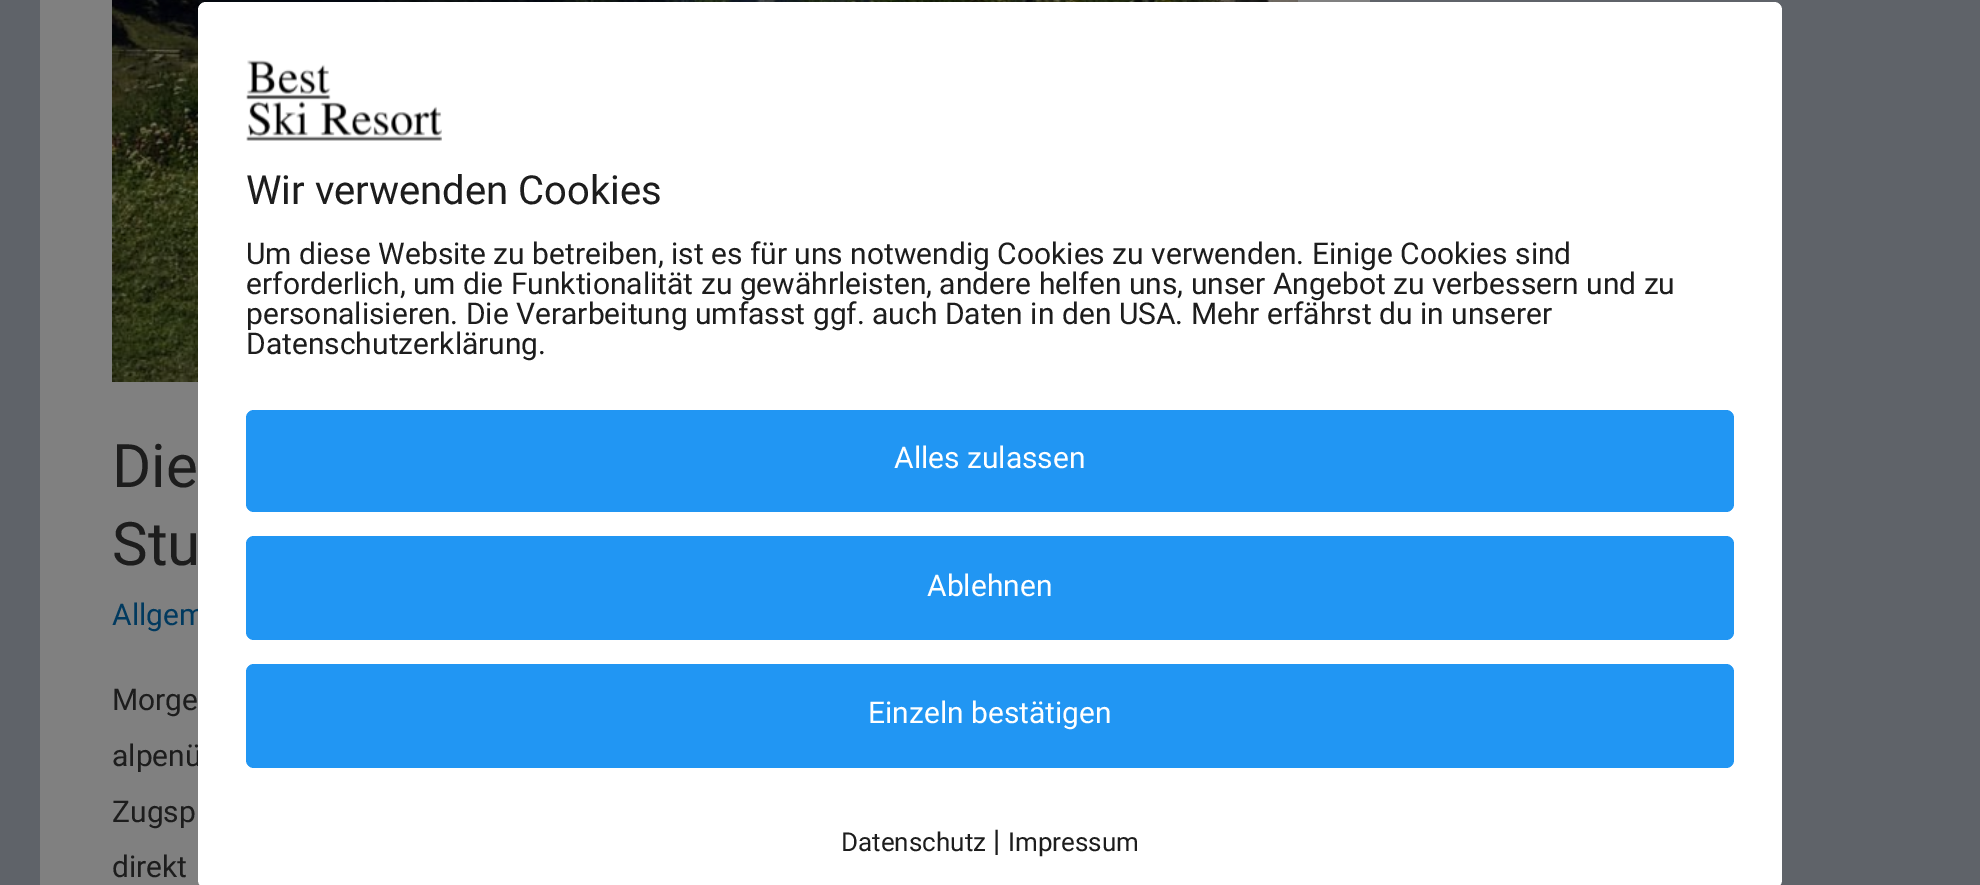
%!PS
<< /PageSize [1980 885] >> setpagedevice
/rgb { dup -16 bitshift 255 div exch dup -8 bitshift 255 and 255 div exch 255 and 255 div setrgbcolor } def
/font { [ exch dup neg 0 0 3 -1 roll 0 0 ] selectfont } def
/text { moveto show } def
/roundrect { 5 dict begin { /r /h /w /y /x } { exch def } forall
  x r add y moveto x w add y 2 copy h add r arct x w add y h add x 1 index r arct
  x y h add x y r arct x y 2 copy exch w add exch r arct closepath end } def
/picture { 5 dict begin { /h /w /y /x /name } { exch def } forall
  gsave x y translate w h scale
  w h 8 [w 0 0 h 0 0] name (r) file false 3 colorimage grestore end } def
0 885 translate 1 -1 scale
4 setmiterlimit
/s1 { /Roboto-Regular 60 font 16#1D1D1D rgb } def
/s2 { /Roboto-Regular 30 font 16#013A5F rgb } def
/s3 { /Roboto-Regular 30 font 16#1D1D1D rgb } def
/s4 { /Roboto-Regular 40 font 16#1D1D1D rgb } def
/s5 { /Roboto-Regular 30 font 16#FFFFFF rgb } def
/s6 { /Roboto-Regular 26 font 16#1D1D1D rgb } def
16#5F6369 rgb
0 0 1980 885 rectfill
16#808080 rgb
40 0 1330 885 rectfill
(pic1.raw) 112 0 1186 382 picture
s1
(Die) 112 487 text
(Stu) 112 565 text
s2
(Allgem) 112 625 text
s3
(Morge) 112 710 text
(alpenü) 112 766 text
(Zugsp) 112 822 text
(direkt) 112 877 text
16#FFFFFF rgb
198 2 1584 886 8 roundrect fill
(pic2.raw) 246 60 196 81 picture
s4
(Wir verwenden Cookies) 246 204 text
s3
(Um diese Website zu betreiben, ist es für uns notwendig Cookies zu verwenden. Einige Cookies sind) 246 264 text
(erforderlich, um die Funktionalität zu gewährleisten, andere helfen uns, unser Angebot zu verbessern und zu) 246 294 text
(personalisieren. Die Verarbeitung umfasst ggf. auch Daten in den USA. Mehr erfährst du in unserer) 246 324 text
(Datenschutzerklärung.) 246 354 text
16#2196F3 rgb
246 410 1488 102 8 roundrect fill
s5
(Alles zulassen) 894 468 text
16#2196F3 rgb
246 536 1488 104 8 roundrect fill
s5
(Ablehnen) 927 596 text
16#2196F3 rgb
246 664 1488 104 8 roundrect fill
s5
(Einzeln bestätigen) 868 723 text
s6
(Datenschutz) 841 851 text
s3
(|) 993 851 text
s6
(Impressum) 1008 851 text
showpage
